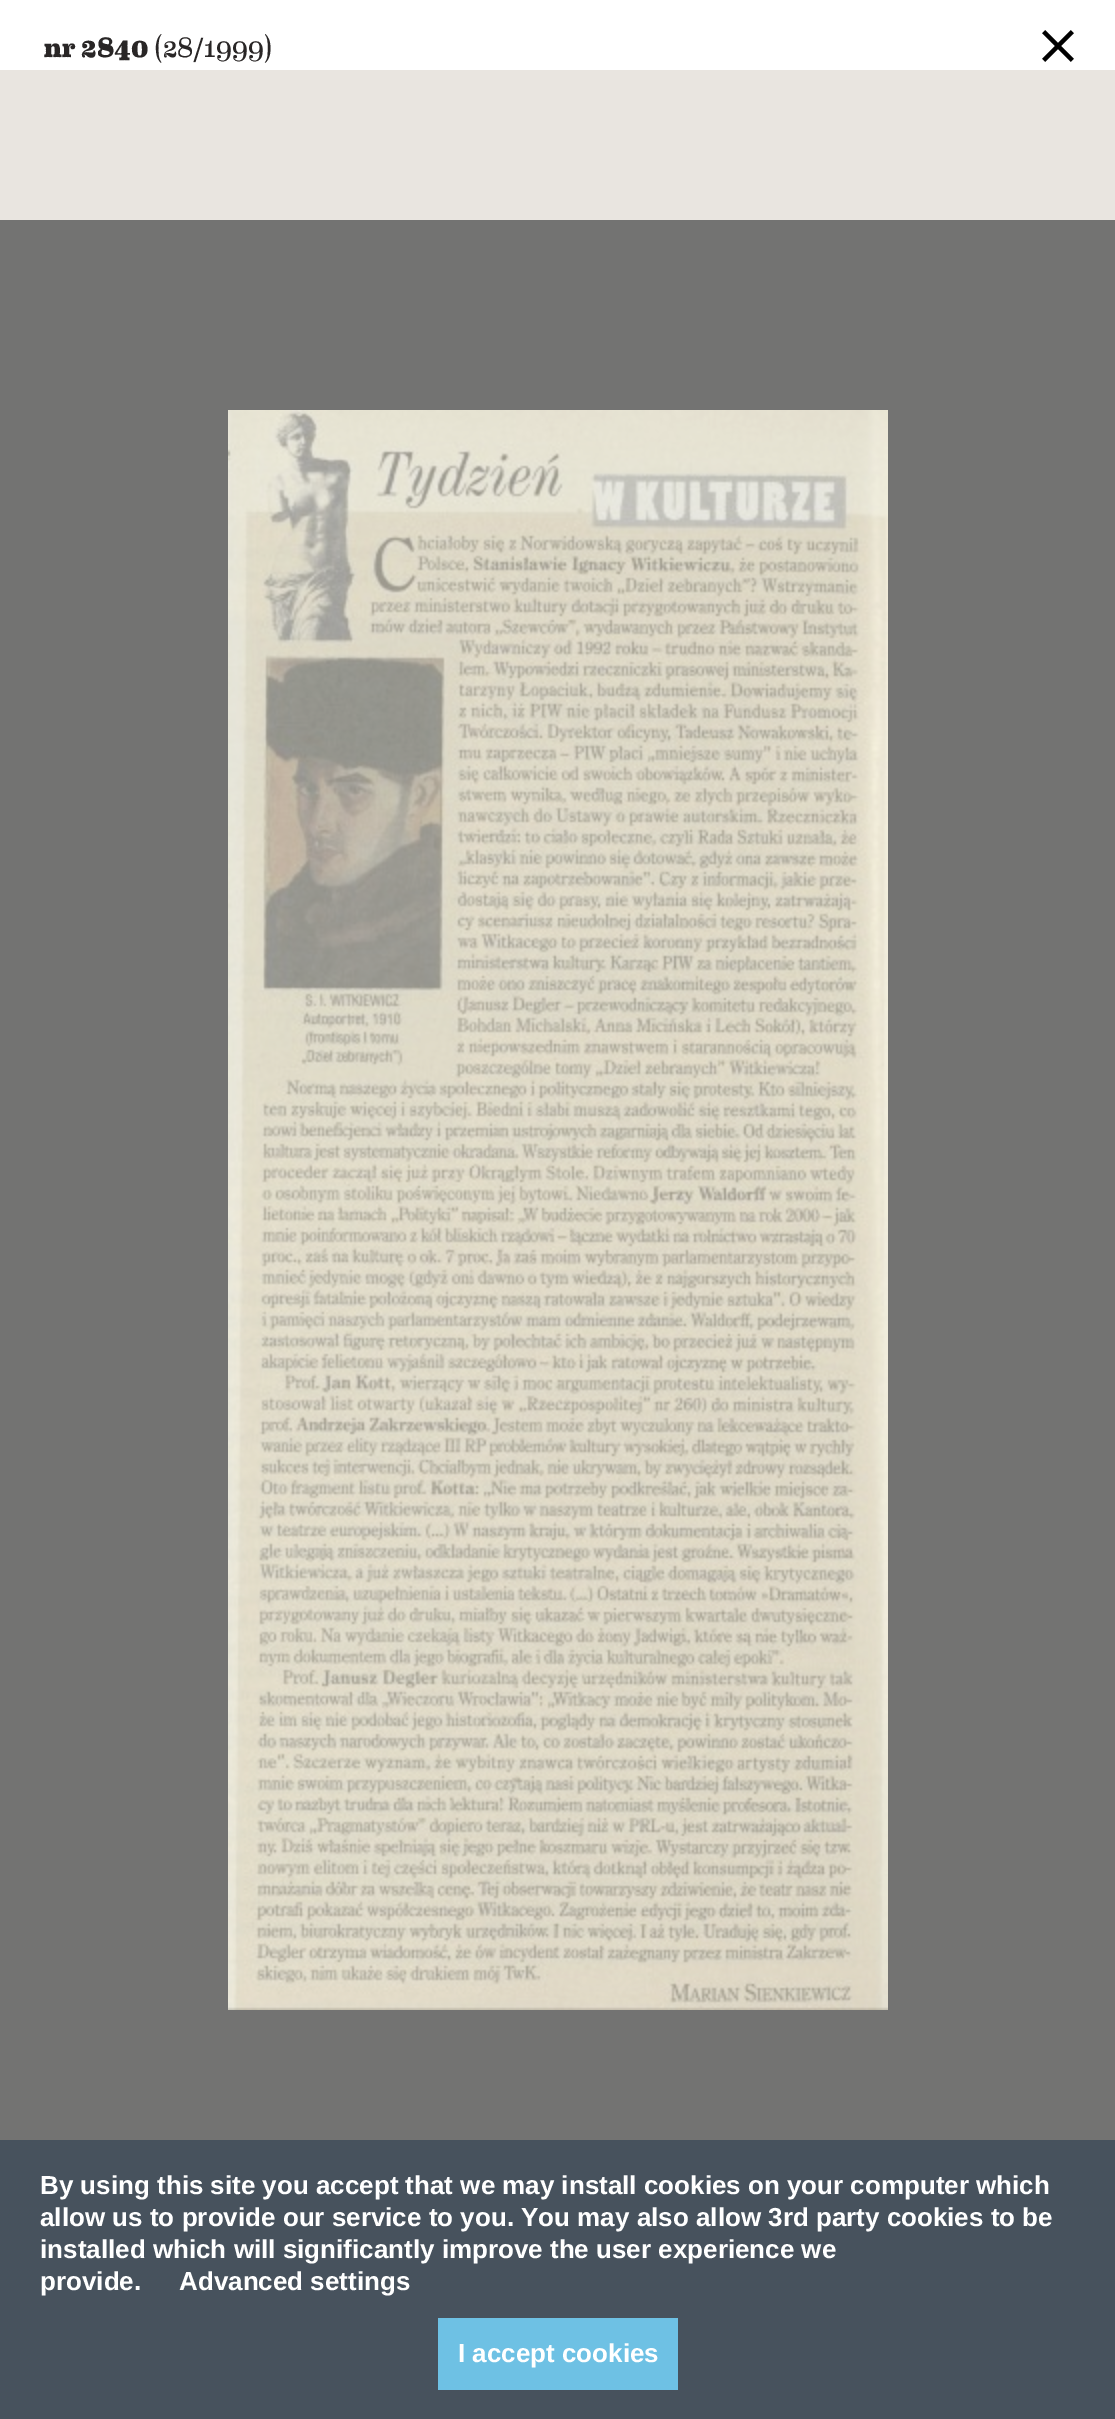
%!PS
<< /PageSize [1115 2419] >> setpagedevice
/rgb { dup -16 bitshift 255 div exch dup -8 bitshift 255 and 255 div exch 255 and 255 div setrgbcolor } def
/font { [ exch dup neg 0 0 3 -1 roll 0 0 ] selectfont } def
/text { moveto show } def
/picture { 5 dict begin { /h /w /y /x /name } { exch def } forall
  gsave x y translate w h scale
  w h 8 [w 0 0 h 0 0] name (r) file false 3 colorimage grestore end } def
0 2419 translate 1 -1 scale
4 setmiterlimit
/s1 { /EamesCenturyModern-ExtraBold 28 font 16#292626 rgb } def
/s2 { /EamesCenturyModern-Regular 28 font 16#292626 rgb } def
/s3 { /LiberationSans-Bold 26 font 16#FFFFFF rgb } def
16#737372 rgb
0 0 1115 2419 rectfill
16#FFFFFF rgb
0 0 1115 70 rectfill
s1
(nr 2840) 44 57 text
s2
(\(28/1999\)) 155 57 text
(pic1.raw) 1042 30 32 32 picture
16#E9E5E0 rgb
0 70 1115 150 rectfill
(pic2.raw) 228 410 660 1600 picture
16#47525D rgb
0 2140 1115 279 rectfill
s3
(By using this site you accept that we may install cookies on your computer which) 40 2194 text
(allow us to provide our service to you. You may also allow 3rd party cookies to be) 40 2226 text
(installed which will significantly improve the user experience we) 40 2258 text
(provide.) 40 2290 text
(Advanced settings) 179 2290 text
16#6EC1E4 rgb
438 2318 240 72 rectfill
s3
(I accept cookies) 458 2362 text
showpage
